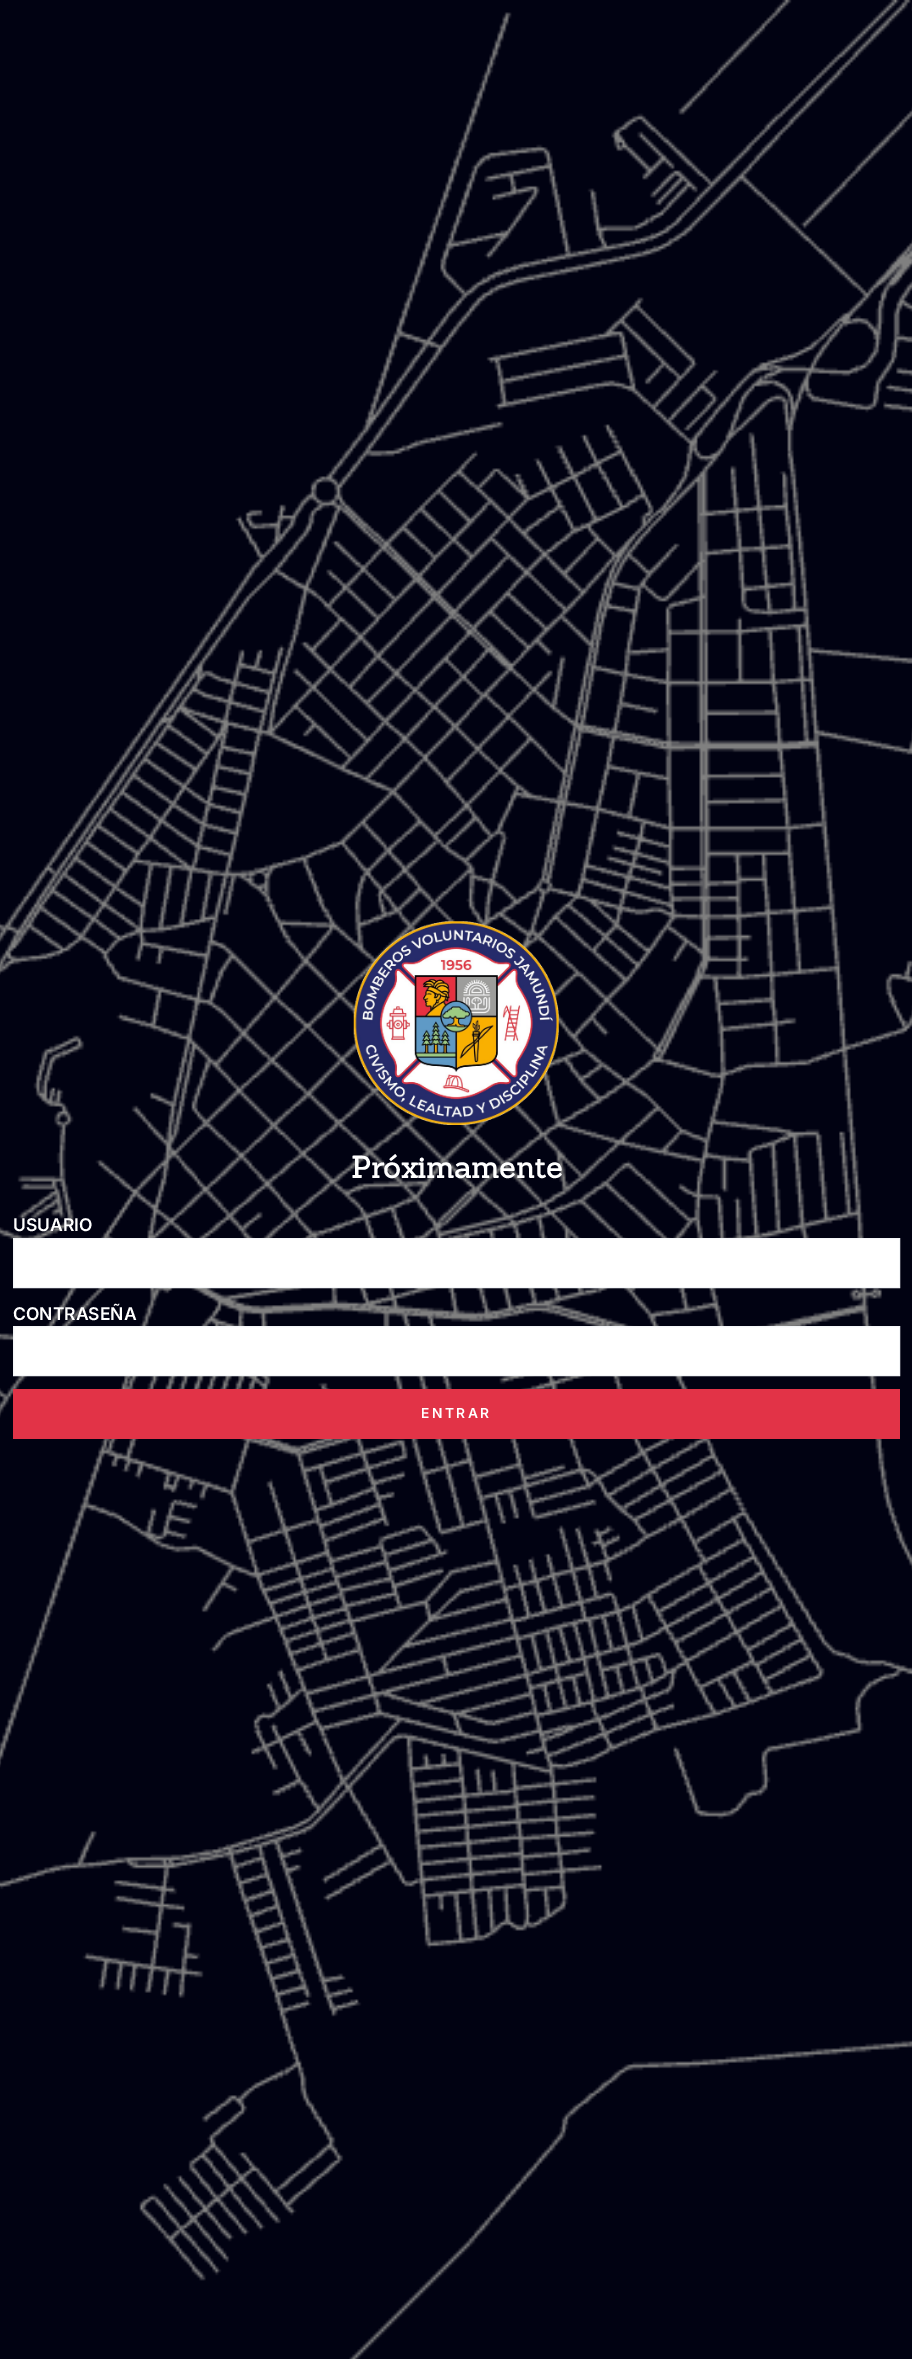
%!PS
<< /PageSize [912 2359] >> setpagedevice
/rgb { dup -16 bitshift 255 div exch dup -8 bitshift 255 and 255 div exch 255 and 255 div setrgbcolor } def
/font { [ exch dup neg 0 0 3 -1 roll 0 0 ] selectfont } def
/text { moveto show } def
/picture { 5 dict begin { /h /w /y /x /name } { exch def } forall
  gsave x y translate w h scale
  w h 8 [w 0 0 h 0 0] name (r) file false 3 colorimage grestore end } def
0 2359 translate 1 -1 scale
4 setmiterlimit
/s1 { /Sanchez-Bold 30 font 16#FFFFFF rgb } def
/s2 { /Inter-SemiBold 17.5 font 16#FFFFFF rgb } def
16#FFFFFF rgb
0 0 912 2359 rectfill
(pic1.raw) 0 0 912 2359 picture
(pic2.raw) 353 921 206 204 picture
s1
(Próximamente) 351 1178 text
s2
(USUARIO) 13 1231 text
13.5 1238.5 moveto 899.5 1238.5 lineto 899.5 1287.5 lineto 13.5 1287.5 lineto closepath gsave fill grestore
16#F4F6F8 rgb
stroke
s2
(CONTRASEÑA) 13 1320 text
13.5 1326.5 moveto 899.5 1326.5 lineto 899.5 1375.5 lineto 13.5 1375.5 lineto closepath gsave fill grestore
16#F4F6F8 rgb
stroke
16#E23347 rgb
13 1389 887 50 rectfill
/Inter-SemiBold 13.75 font
16#FFFFFF rgb
421 1418 moveto 2.5 0 (ENTRAR) ashow
showpage
